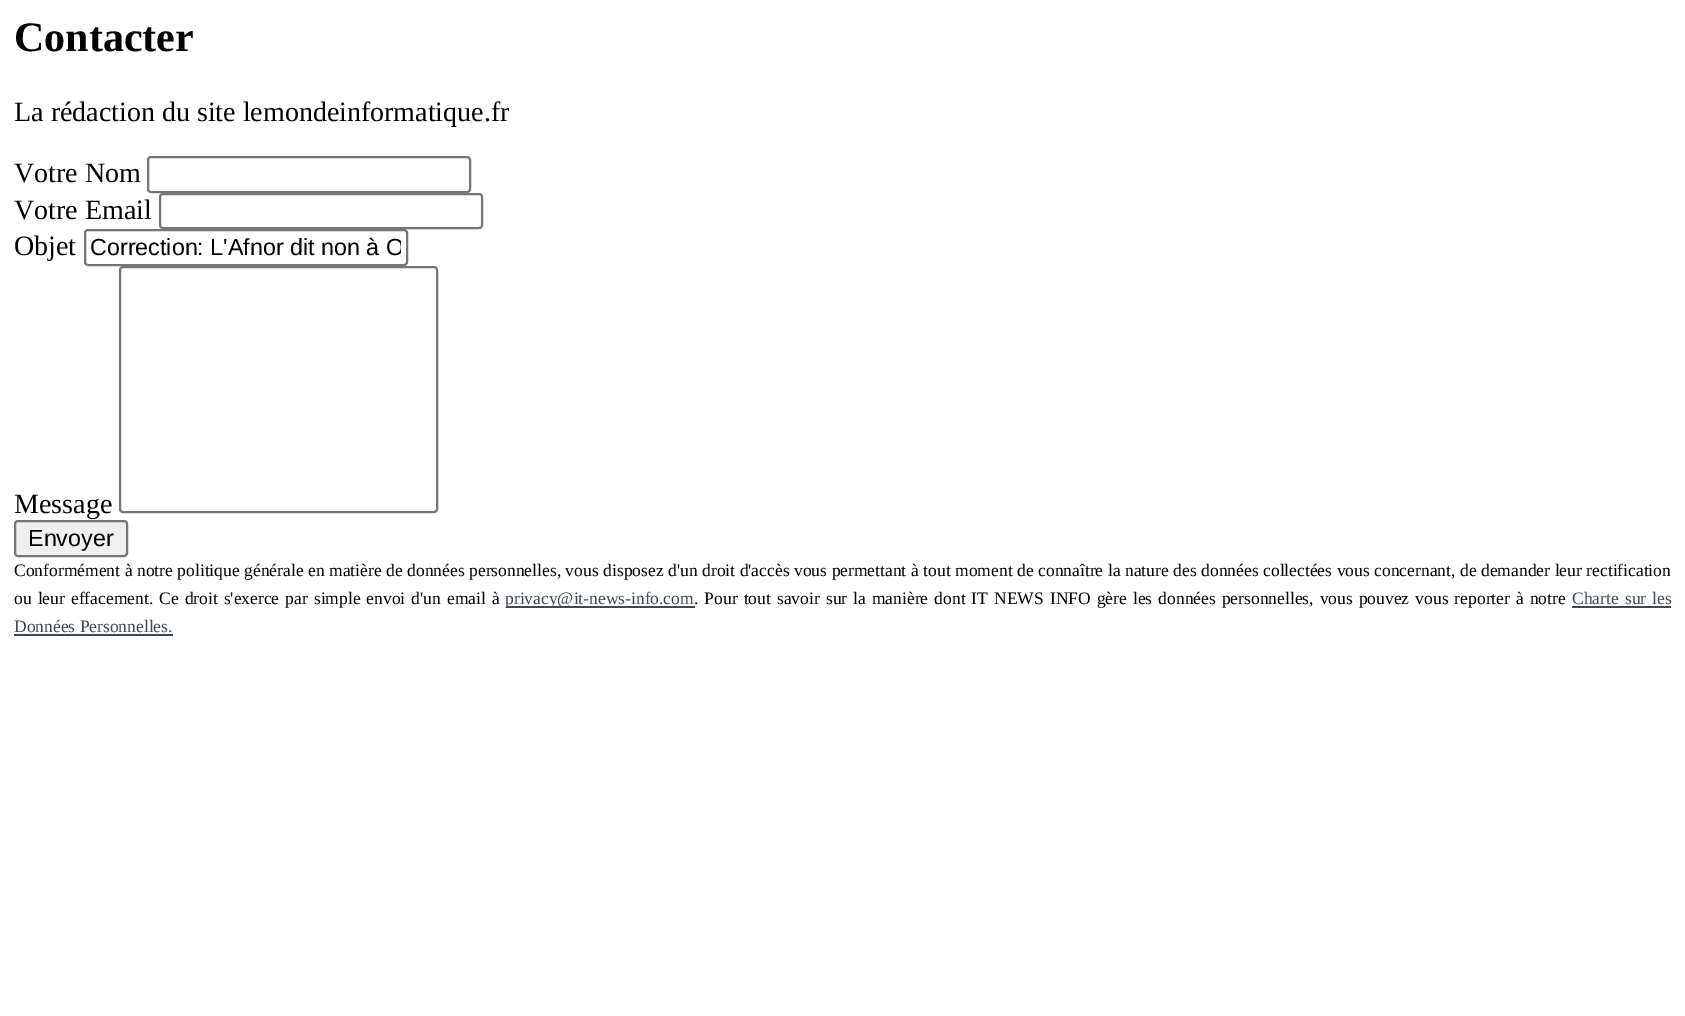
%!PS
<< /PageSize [1685 1016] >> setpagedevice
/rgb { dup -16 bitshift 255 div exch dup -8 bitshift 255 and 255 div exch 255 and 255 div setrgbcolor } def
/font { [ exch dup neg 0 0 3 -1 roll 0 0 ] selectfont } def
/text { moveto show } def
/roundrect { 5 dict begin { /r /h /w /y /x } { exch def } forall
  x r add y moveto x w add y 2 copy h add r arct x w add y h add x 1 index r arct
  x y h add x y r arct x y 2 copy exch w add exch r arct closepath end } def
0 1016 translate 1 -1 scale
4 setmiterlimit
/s1 { /LiberationSerif-Bold 42 font 16#000000 rgb } def
/s2 { /LiberationSerif-Regular 28 font 16#000000 rgb } def
/s3 { /LiberationSans-Regular 23.3 font 16#000000 rgb } def
/s4 { /LiberationSerif-Regular 17.5 font 16#3F4853 rgb } def
16#FFFFFF rgb
0 0 1685 1016 rectfill
s1
(Contacter) 14 51 text
s2
(La rédaction du site lemondeinformatique.fr) 14 121 text
(Votre Nom) 14 182 text
16#767676 rgb
2 setlinewidth
148 157 322 35 3 roundrect stroke
s2
(Votre Email) 14 219 text
16#767676 rgb
160 194 322 34 3 roundrect stroke
s2
(Objet) 14 255 text
16#767676 rgb
85 230 322 35 3 roundrect stroke
gsave
91 235 310 26 rectclip
s3
(Correction: L'Afnor dit non à O) 90 255 text
grestore
s2
(Message) 14 513 text
16#767676 rgb
120 267 317 245 3 roundrect stroke
16#EFEFEF rgb
15 521 112 35 3 roundrect gsave fill grestore
16#767676 rgb
stroke
s3
(Envoyer) 28 546 text
/LiberationSerif-Regular 17.5 font
14 576 moveto 0.2 0 32 (Conformément à notre politique générale en matière de données personnelles, vous disposez d'un droit d'accès vous permettant à tout moment de connaître la nature des données collectées vous concernant, de demander leur rectification) widthshow
14 604 moveto 1.7 0 32 (ou leur effacement. Ce droit s'exerce par simple envoi d'un email à) widthshow
16#3F4853 rgb
506 606 189 2 rectfill
(privacy@it-news-info.com) 505 604 text
16#000000 rgb
694 604 moveto 1.7 0 32 (. Pour tout savoir sur la manière dont IT NEWS INFO gère les données personnelles, vous pouvez vous reporter à notre) widthshow
16#3F4853 rgb
1572 604 moveto 1.7 0 32 (Charte sur les) widthshow
1572 606 99 2 rectfill
(Données Personnelles.) 14 632 text
14 634 159 2 rectfill
showpage
